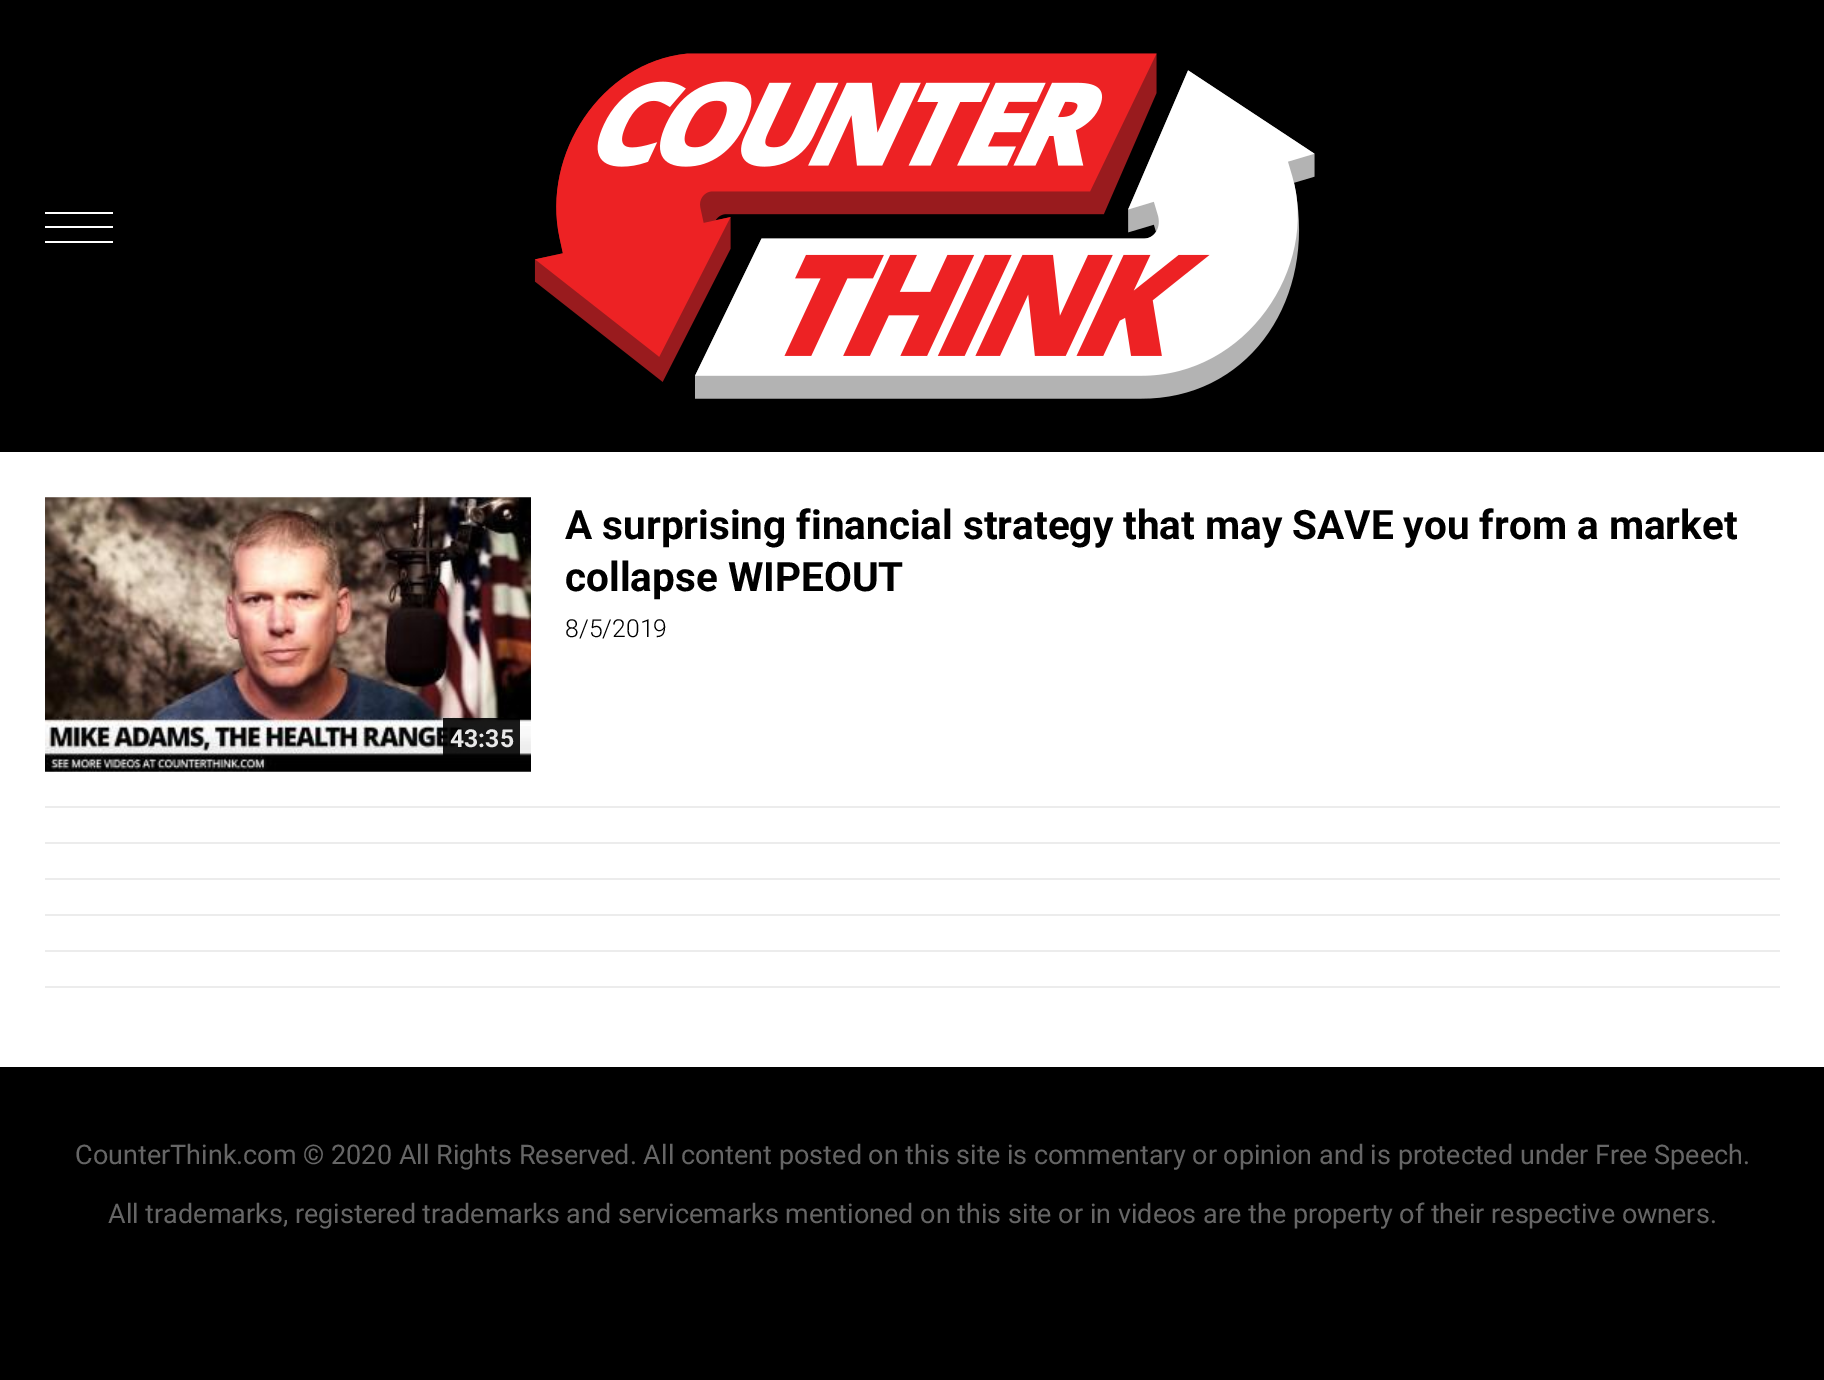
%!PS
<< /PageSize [1824 1380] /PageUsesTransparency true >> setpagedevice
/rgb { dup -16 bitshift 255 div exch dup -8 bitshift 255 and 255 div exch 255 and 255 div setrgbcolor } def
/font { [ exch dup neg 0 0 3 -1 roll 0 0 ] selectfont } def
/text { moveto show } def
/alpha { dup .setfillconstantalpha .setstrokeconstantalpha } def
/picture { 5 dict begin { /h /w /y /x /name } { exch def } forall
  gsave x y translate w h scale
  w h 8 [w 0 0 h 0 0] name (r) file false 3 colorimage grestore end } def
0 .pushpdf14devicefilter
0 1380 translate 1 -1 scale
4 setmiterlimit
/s1 { /Roboto-Bold 40.5 font 16#000000 rgb } def
/s2 { /Roboto-Light 24.75 font 16#000000 rgb } def
/s3 { /Roboto-Bold 24.75 font 16#E8E8E8 rgb } def
/s4 { /Roboto-Regular 27 font 16#666666 rgb } def
16#000000 rgb
0 0 1824 1380 rectfill
16#FFFFFF rgb
45 241 68 2 rectfill
45 226 68 2 rectfill
45 212 68 2 rectfill
(pic1.raw) 534 53 781 346 picture
0 452 1824 615 rectfill
16#ECECEC rgb
45 806 1735 2 rectfill
s1
(A surprising financial strategy that may SAVE you from a market) 565 539 text
(collapse WIPEOUT) 565 591 text
s2
(8/5/2019) 565 637 text
(pic2.raw) 45 497 486 275 picture
0.9 alpha
443 718 77 38 rectfill
1 alpha
s3
(43:35) 450 747 text
16#ECECEC rgb
45 842 1735 2 rectfill
45 878 1735 2 rectfill
45 914 1735 2 rectfill
45 950 1735 2 rectfill
45 986 1735 2 rectfill
s4
(CounterThink.com © 2020 All Rights Reserved. All content posted on this site is commentary or opinion and is protected under Free Speech.) 75 1164 text
(All trademarks, registered trademarks and servicemarks mentioned on this site or in videos are the property of their respective owners.) 108 1223 text
.poppdf14devicefilter showpage
